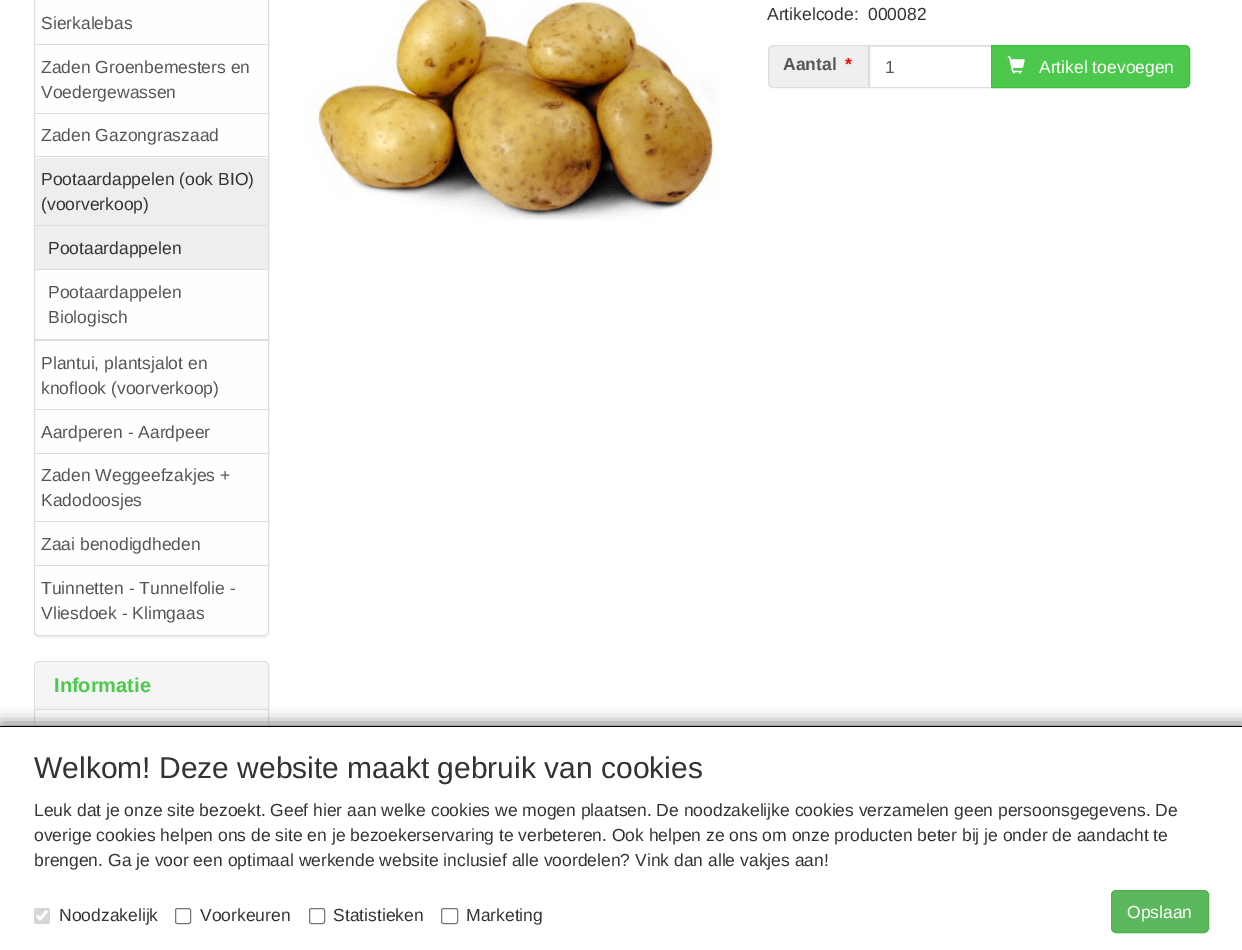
%!PS
<< /PageSize [1242 950] /PageUsesTransparency true >> setpagedevice
/rgb { dup -16 bitshift 255 div exch dup -8 bitshift 255 and 255 div exch 255 and 255 div setrgbcolor } def
/font { [ exch dup neg 0 0 3 -1 roll 0 0 ] selectfont } def
/text { moveto show } def
/alpha { dup .setfillconstantalpha .setstrokeconstantalpha } def
/roundrect { 5 dict begin { /r /h /w /y /x } { exch def } forall
  x r add y moveto x w add y 2 copy h add r arct x w add y h add x 1 index r arct
  x y h add x y r arct x y 2 copy exch w add exch r arct closepath end } def
/shadow { 12 dict begin { /a /b /q /h /w /y /x } { exch def } forall gsave /was 0 def
  9 -2 -9 { dup b mul 4 div /e exch def 1 sub .425 mul 2.718 exch exp 1 add a .99 .min exch div /now exch def
    1 1 now sub 1 was sub div sub alpha /was now def
    w h .min e 2 mul add 0 gt { x e sub y e sub w e 2 mul add h e 2 mul add
      q e add b .6 mul add w h .min 2 div e add .min 0 .max roundrect fill } if } for grestore end } def
/picture { 5 dict begin { /h /w /y /x /name } { exch def } forall
  gsave x y translate w h scale
  w h 8 [w 0 0 h 0 0] name (r) file false 3 colorimage grestore end } def
0 .pushpdf14devicefilter
0 950 translate 1 -1 scale
4 setmiterlimit
/s1 { /LiberationSans-Regular 17.5 font 16#555555 rgb } def
/s2 { /LiberationSans-Regular 17.5 font 16#333333 rgb } def
/s3 { /LiberationSans-Bold 20 font 16#4CC94C rgb } def
/s4 { /LiberationSans-Bold 17.5 font 16#555555 rgb } def
/s5 { /LiberationSans-Bold 17.5 font 16#FF0000 rgb } def
/s6 { /LiberationSans-Regular 17.5 font 16#FEFEFE rgb } def
/s7 { /LiberationSans-Regular 30 font 16#333333 rgb } def
16#FFFFFF rgb
0 0 1242 950 rectfill
16#000000 rgb
34 -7 235 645 5 0.5 0.05 shadow
16#FEFEFE rgb
34.5 -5.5 234 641 4.5 roundrect gsave fill grestore
16#DDDDDD rgb
stroke
s1
(Sierkalebas) 41 29 text
16#DDDDDD rgb
35 44 233 1 rectfill
s1
(Zaden Groenbemesters en) 41 73 text
(Voedergewassen) 41 98 text
16#DDDDDD rgb
35 113 233 1 rectfill
s1
(Zaden Gazongraszaad) 41 141 text
16#EEEEEE rgb
35 158 233 67 rectfill
16#DDDDDD rgb
35 156 233 1 rectfill
s2
(Pootaardappelen \(ook BIO\)) 41 185 text
(\(voorverkoop\)) 41 210 text
16#DDDDDD rgb
35 339 233 2 rectfill
16#EEEEEE rgb
35 226 233 43 rectfill
16#DDDDDD rgb
35 225 233 1 rectfill
s2
(Pootaardappelen) 48 254 text
16#DDDDDD rgb
35 269 233 1 rectfill
s1
(Pootaardappelen) 48 298 text
(Biologisch) 48 323 text
(Plantui, plantsjalot en) 41 369 text
(knoflook \(voorverkoop\)) 41 394 text
16#DDDDDD rgb
35 409 233 1 rectfill
s1
(Aardperen - Aardpeer) 41 438 text
16#DDDDDD rgb
35 453 233 1 rectfill
s1
(Zaden Weggeefzakjes +) 41 481 text
(Kadodoosjes) 41 506 text
16#DDDDDD rgb
35 521 233 1 rectfill
s1
(Zaai benodigdheden) 41 550 text
16#FEFEFE rgb
35 565 moveto 268 565 lineto 268 630 lineto 268 633 266 635 263 635 curveto 40 635 lineto 37 635 35 633 35 630 curveto closepath fill
16#DDDDDD rgb
35 565 233 1 rectfill
s1
(Tuinnetten - Tunnelfolie -) 41 594 text
(Vliesdoek - Klimgaas) 41 619 text
16#DDDDDD rgb
34.5 661.5 234 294 4.5 roundrect stroke
16#F5F5F5 rgb
39 663 moveto 264 663 lineto 266 663 268 665 268 667 curveto 268 710 lineto 35 710 lineto 35 667 lineto 35 665 37 663 39 663 curveto closepath fill
16#DDDDDD rgb
35 709 233 1 rectfill
s3
(Informatie) 54 692 text
(pic1.raw) 306 0 415 220 picture
s2
(Artikelcode:) 767 20 text
(000082) 868 20 text
16#EFEFEF rgb
773 45.5 moveto 868.5 45.5 lineto 868.5 87.5 lineto 773 87.5 lineto 770.5 87.5 768.5 85.5 768.5 83 curveto 768.5 50 lineto 768.5 47.5 770.5 45.5 773 45.5 curveto closepath gsave fill grestore
16#DDDDDD rgb
stroke
s4
(Aantal) 783 70 text
s5
(*) 845 70 text
16#ECECEC rgb
870 46 121 1 rectfill
16#DDDDDD rgb
869.5 45.5 123 42 rectstroke
s1
(1) 885 73 text
16#4CC94C rgb
991.5 45.5 moveto 1185 45.5 lineto 1187.5 45.5 1189.5 47.5 1189.5 50 curveto 1189.5 83 lineto 1189.5 85.5 1187.5 87.5 1185 87.5 curveto 991.5 87.5 lineto closepath gsave fill grestore
16#3AC13A rgb
stroke
(pic2.raw) 1007 56 18 18 picture
s6
(Artikel toevoegen) 1039 73 text
16#808080 rgb
1 723 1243 223 0 7.5 1 shadow
16#FFFFFF rgb
0 727 1242 223 rectfill
16#000000 rgb
0 726 1242 1 rectfill
s7
(Welkom! Deze website maakt gebruik van cookies) 34 778 text
s2
(Leuk dat je onze site bezoekt. Geef hier aan welke cookies we mogen plaatsen. De noodzakelijke cookies verzamelen geen persoonsgegevens. De) 34 816 text
(overige cookies helpen ons de site en je bezoekerservaring te verbeteren. Ook helpen ze ons om onze producten beter bij je onder de aandacht te) 34 841 text
(brengen. Ga je voor een optimaal werkende website inclusief alle voordelen? Vink dan alle vakjes aan!) 34 866 text
16#D6D6D6 rgb
34 908 16 16 2.5 roundrect fill
16#FFFFFF rgb
2.6 setlinewidth
37 915.5 moveto 40 919 lineto 47 911 lineto stroke
s2
(Noodzakelijk) 59 921 text
16#767676 rgb
1 setlinewidth
175.5 908.5 15 15 2 roundrect stroke
s2
(Voorkeuren) 200 921 text
16#767676 rgb
309.5 908.5 15 15 2 roundrect stroke
s2
(Statistieken) 333 921 text
16#767676 rgb
441.5 908.5 16 15 2 roundrect stroke
s2
(Marketing) 466 921 text
16#5CB85C rgb
1111.5 890.5 97 42 4.5 roundrect gsave fill grestore
16#4CAE4C rgb
stroke
s6
(Opslaan) 1127 918 text
.poppdf14devicefilter showpage
